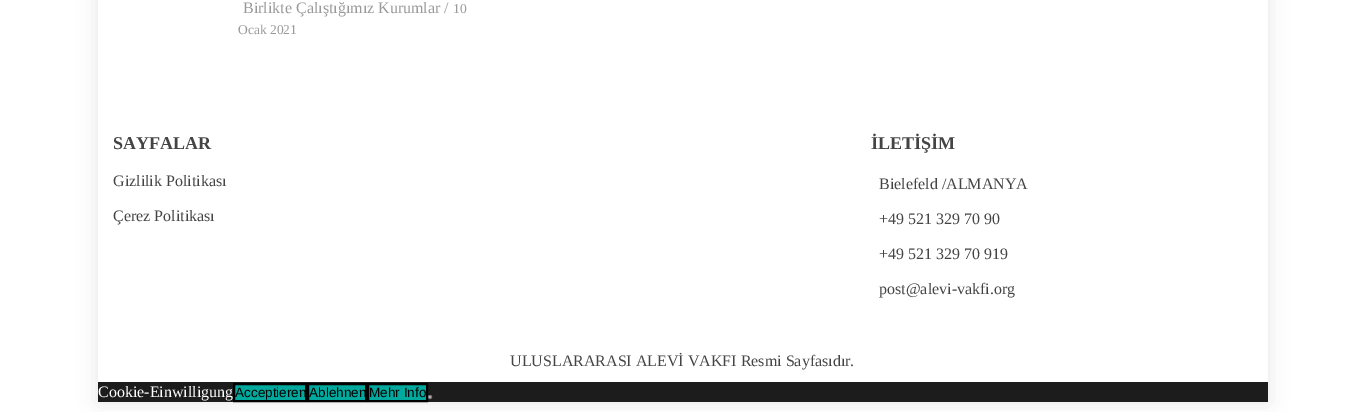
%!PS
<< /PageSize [1365 412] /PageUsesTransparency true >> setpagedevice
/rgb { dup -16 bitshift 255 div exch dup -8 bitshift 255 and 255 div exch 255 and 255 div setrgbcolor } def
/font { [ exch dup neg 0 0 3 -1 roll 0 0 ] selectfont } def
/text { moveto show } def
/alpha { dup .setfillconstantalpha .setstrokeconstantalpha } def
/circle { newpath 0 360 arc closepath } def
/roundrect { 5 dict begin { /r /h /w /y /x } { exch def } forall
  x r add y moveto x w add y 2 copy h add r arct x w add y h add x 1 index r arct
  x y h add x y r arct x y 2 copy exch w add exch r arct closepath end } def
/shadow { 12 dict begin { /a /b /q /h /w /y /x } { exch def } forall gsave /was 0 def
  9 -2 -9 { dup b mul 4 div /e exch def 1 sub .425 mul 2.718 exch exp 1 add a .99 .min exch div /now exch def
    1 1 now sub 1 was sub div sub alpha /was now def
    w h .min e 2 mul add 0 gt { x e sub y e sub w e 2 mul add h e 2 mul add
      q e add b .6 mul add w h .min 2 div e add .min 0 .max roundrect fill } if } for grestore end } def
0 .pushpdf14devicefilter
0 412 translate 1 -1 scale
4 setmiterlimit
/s1 { /LiberationSerif-Regular 16 font 16#999999 rgb } def
/s2 { /LiberationSerif-Regular 13.5 font 16#999999 rgb } def
/s3 { /LiberationSerif-Bold 18 font 16#444444 rgb } def
/s4 { /LiberationSerif-Regular 16 font 16#444444 rgb } def
/s5 { /LiberationSerif-Regular 16 font 16#FFFFFF rgb } def
/s6 { /LiberationSans-Regular 13.5 font 16#000000 rgb } def
16#FFFFFF rgb
0 0 1365 412 rectfill
gsave
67 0 moveto 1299 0 lineto 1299 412 lineto 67 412 lineto closepath 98 -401 moveto 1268 -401 lineto 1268 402 lineto 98 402 lineto closepath eoclip newpath
16#000000 rgb
98 -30 1170 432 0 10 0.1 shadow
grestore
s1
(Birlikte Çalıştığımız Kurumlar /) 243 13 text
s2
(10) 453 13 text
(Ocak 2021) 238 34 text
s3
(SAYFALAR) 113 149 text
s4
(Gizlilik Politikası) 113 186 text
(Çerez Politikası) 113 221 text
s3
(İLETİŞİM) 871 149 text
s4
(Bielefeld /ALMANYA) 879 189 text
(+49 521 329 70 90) 879 224 text
(+49 521 329 70 919) 879 259 text
(post@alevi-vakfi.org) 879 294 text
(ULUSLARARASI ALEVİ VAKFI Resmi Sayfasıdır.) 510 366 text
16#1C1C1C rgb
98 382 1170 20 rectfill
s5
(Cookie-Einwilligung) 98 397 text
16#00A99D rgb
234 384 moveto 306 384 lineto 306 401 lineto 234 401 lineto closepath gsave fill grestore
16#000000 rgb
2 setlinewidth
stroke
s6
(Acceptieren) 235 397 text
16#00A99D rgb
308 384 moveto 366 384 lineto 366 401 lineto 308 401 lineto closepath gsave fill grestore
16#000000 rgb
stroke
(Ablehnen) 309 397 text
16#00A99D rgb
368 384 moveto 427 384 lineto 427 401 lineto 368 401 lineto closepath gsave fill grestore
16#000000 rgb
stroke
(Mehr Info) 369 397 text
16#EFEFEF rgb
430 397 1.5 circle gsave fill grestore
16#767676 rgb
1 setlinewidth
stroke
.poppdf14devicefilter showpage
